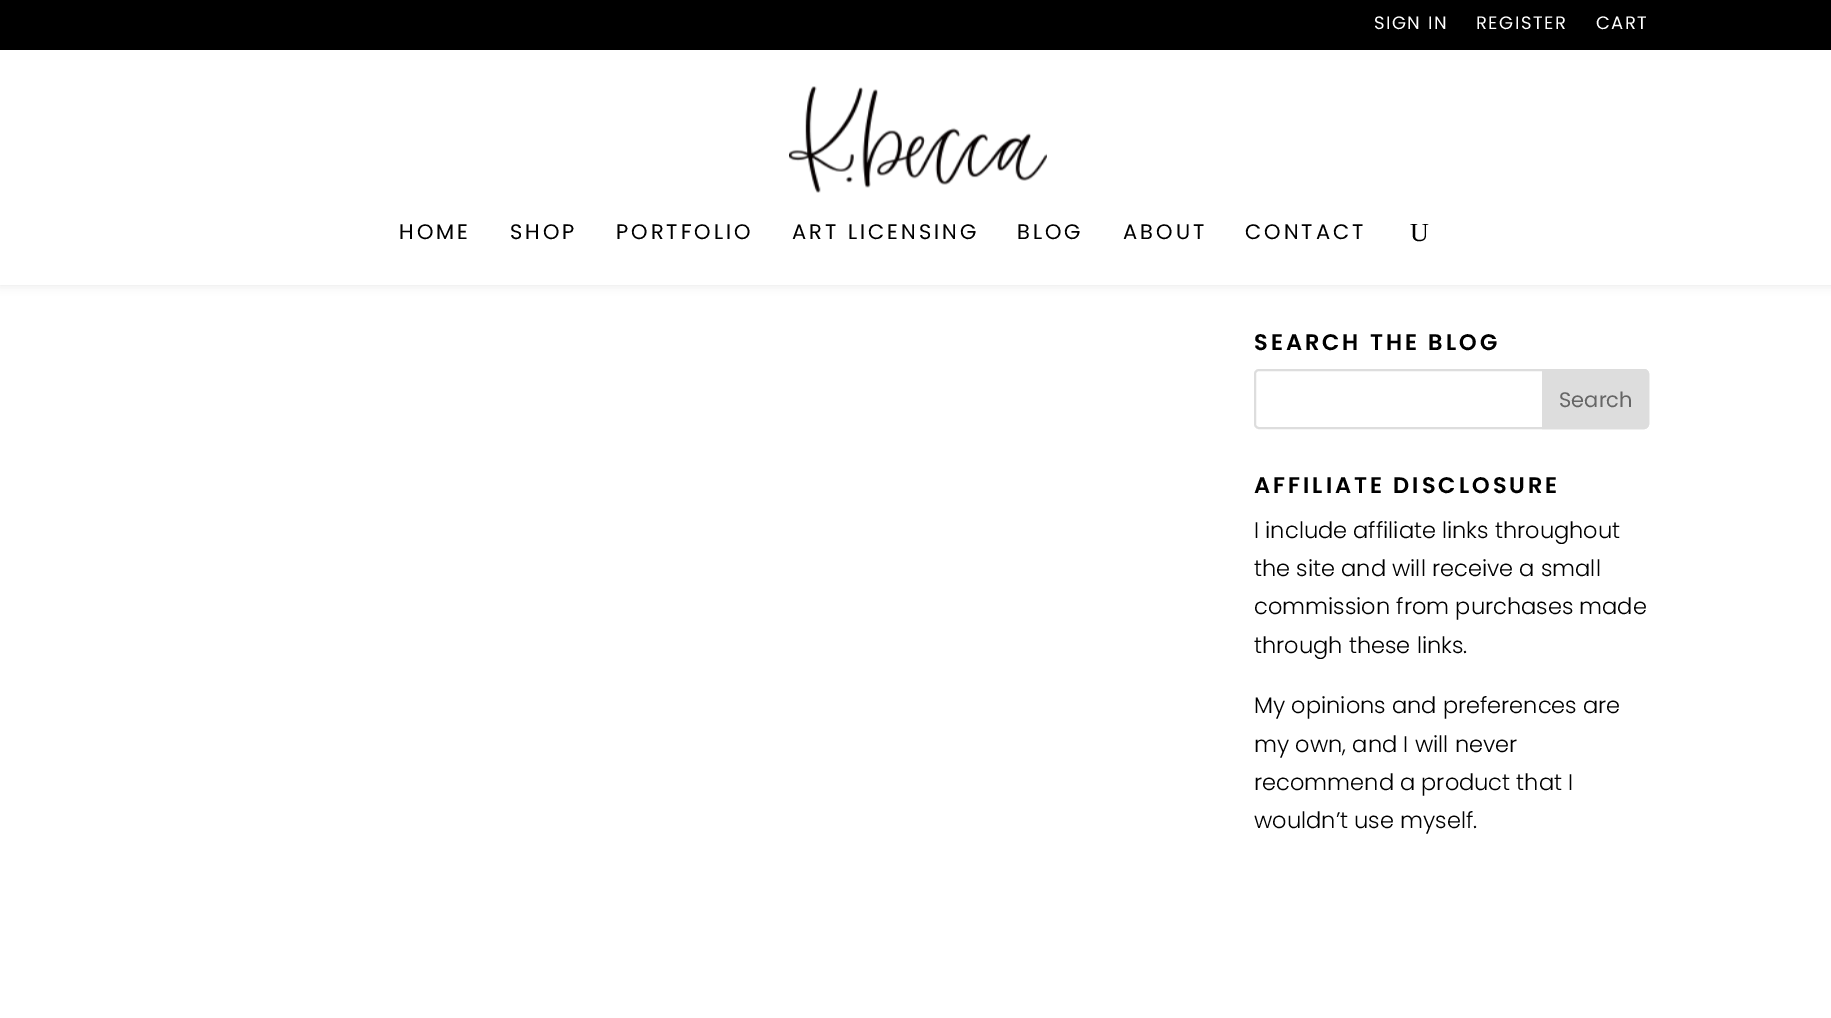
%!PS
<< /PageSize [1831 1018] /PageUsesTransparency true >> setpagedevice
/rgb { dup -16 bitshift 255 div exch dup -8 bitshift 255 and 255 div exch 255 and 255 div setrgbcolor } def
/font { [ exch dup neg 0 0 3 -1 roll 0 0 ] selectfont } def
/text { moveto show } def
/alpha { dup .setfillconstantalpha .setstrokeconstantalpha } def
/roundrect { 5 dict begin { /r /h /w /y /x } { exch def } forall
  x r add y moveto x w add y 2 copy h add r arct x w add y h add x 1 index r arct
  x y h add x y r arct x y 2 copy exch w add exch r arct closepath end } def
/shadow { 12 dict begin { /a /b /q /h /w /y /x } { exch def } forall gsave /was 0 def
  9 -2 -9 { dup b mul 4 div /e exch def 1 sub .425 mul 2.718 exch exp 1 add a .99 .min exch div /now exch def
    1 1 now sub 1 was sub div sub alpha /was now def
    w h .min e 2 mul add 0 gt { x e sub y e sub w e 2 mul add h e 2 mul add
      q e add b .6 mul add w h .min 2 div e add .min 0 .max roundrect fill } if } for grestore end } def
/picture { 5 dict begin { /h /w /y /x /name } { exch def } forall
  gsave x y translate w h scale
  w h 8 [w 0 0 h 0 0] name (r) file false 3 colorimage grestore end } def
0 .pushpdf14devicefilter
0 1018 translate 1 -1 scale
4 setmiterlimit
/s1 { /LiberationSerif-Regular 26 font 16#000000 rgb } def
/s2 { /Poppins-Regular 21 font 16#666666 rgb } def
/s3 { /Poppins-Light 22.5 font 16#000000 rgb } def
16#FFFFFF rgb
0 0 1831 1018 rectfill
16#000000 rgb
0 50 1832 235 0 5 0.1 shadow
0 0 1831 50 rectfill
/Poppins-Regular 18 font
16#FFFFFF rgb
1374 29 moveto 1.5 0 (SIGN IN) ashow
1476 29 moveto 1.5 0 (REGISTER) ashow
1596 29 moveto 1.5 0 (CART) ashow
0 50 1831 235 rectfill
(pic1.raw) 789 86 258 107 picture
/Poppins-Regular 21 font
16#000000 rgb
399 239 moveto 3 0 (HOME) ashow
510 239 moveto 3 0 (SHOP) ashow
616 239 moveto 3 0 (PORTFOLIO) ashow
792 239 moveto 3 0 (ART LICENSING) ashow
1017 239 moveto 3 0 (BLOG) ashow
1123 239 moveto 3 0 (ABOUT) ashow
1245 239 moveto 3 0 (CONTACT) ashow
s1
(U) 1410 241 text
/Poppins-SemiBold 22.5 font
1254 350 moveto 3 0 (SEARCH THE BLOG) ashow
16#DDDDDD rgb
2 setlinewidth
1255 370 393 58 4 roundrect stroke
1543 370 moveto 1644 370 lineto 1646 370 1648 372 1648 374 curveto 1648 424 lineto 1648 426 1646 428 1644 428 curveto 1543 428 lineto closepath gsave fill grestore
stroke
s2
(Search) 1559 407 text
/Poppins-SemiBold 22.5 font
16#000000 rgb
1254 493 moveto 3 0 (AFFILIATE DISCLOSURE) ashow
s3
(I include affiliate links throughout) 1254 538 text
(the site and will receive a small) 1254 576 text
(commission from purchases made) 1254 614 text
(through these links.) 1254 653 text
(My opinions and preferences are) 1254 713 text
(my own, and I will never) 1254 752 text
(recommend a product that I) 1254 790 text
(wouldn’t use myself.) 1254 828 text
.poppdf14devicefilter showpage
